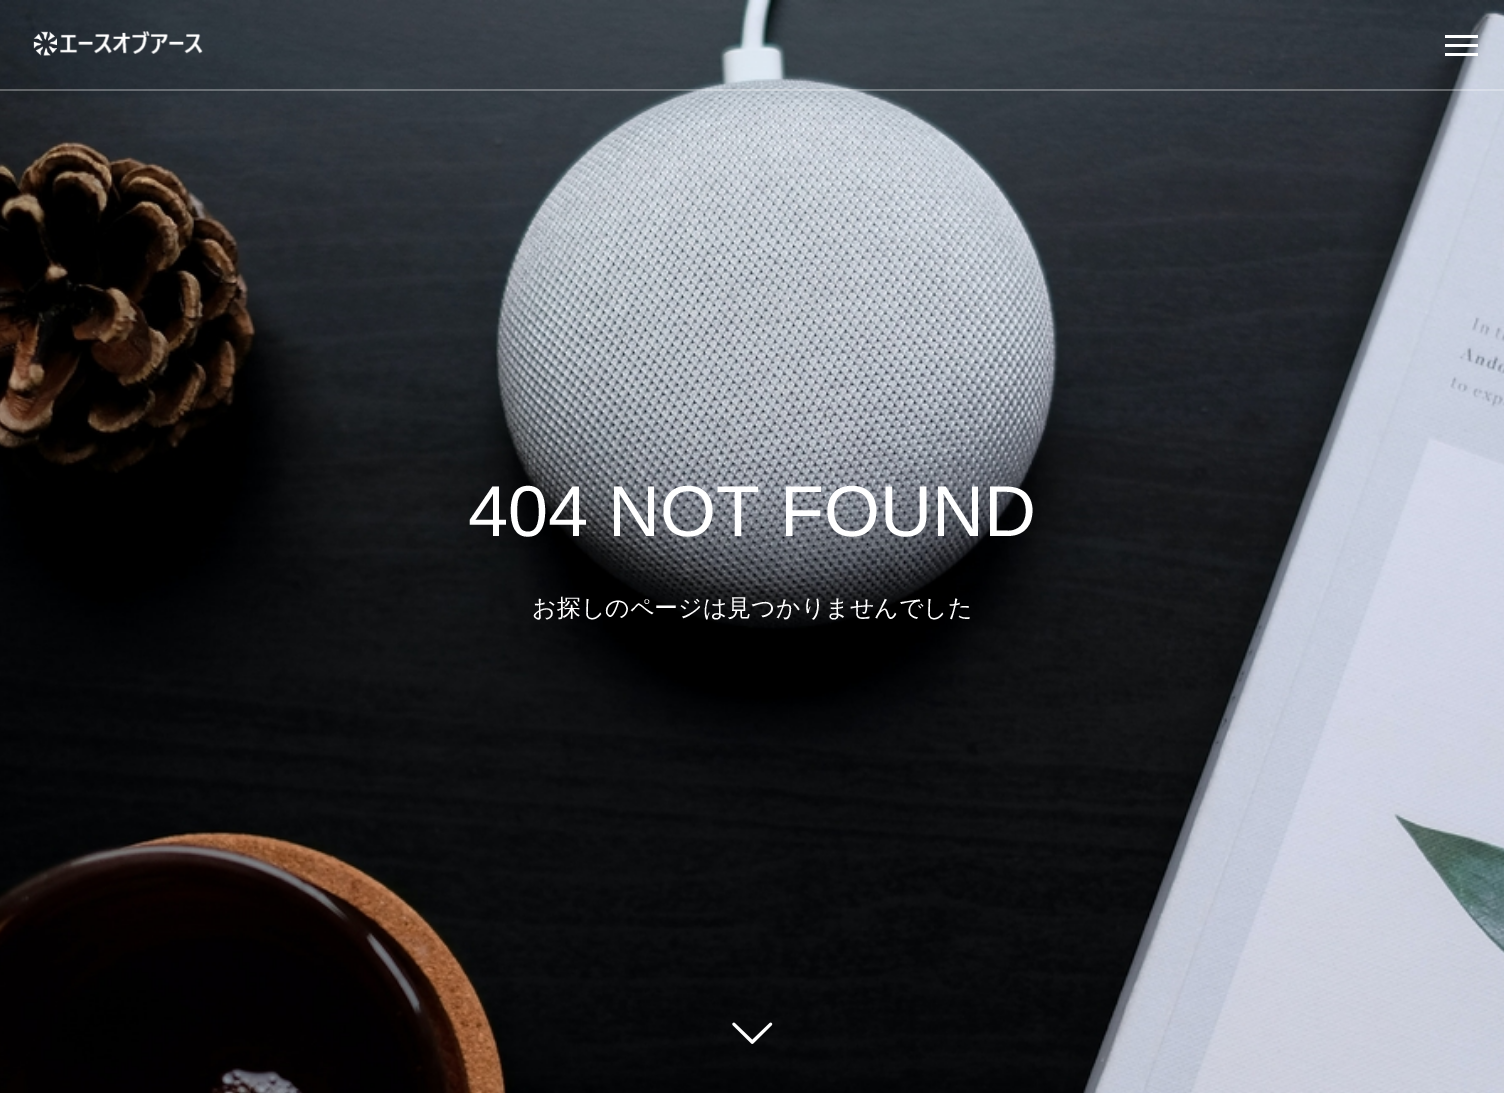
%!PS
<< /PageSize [1504 1093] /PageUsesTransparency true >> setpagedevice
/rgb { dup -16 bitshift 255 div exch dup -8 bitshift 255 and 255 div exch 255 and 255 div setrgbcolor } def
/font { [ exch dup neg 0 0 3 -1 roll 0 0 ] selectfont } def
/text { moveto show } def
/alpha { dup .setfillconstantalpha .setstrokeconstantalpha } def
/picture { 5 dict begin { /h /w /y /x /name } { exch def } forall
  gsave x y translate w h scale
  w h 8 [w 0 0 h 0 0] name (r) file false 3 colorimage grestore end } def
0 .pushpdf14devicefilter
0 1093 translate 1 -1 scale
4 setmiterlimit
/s1 { /LiberationSans-Regular 72 font 16#FFFFFF rgb } def
/s2 { /WenQuanYiZenHei-Medium 24 font 16#FFFFFF rgb } def
16#FFFFFF rgb
0 0 1504 1093 rectfill
(pic2.raw) 0 0 1504 1093 picture
0.3 alpha
0 89 1504 2 rectfill
1 alpha
(pic1.raw) 33 31 170 25 picture
1445 35 33 3 rectfill
1445 44 33 3 rectfill
1445 53 33 3 rectfill
s1
(404 NOT FOUND) 468 536 text
s2
(お探しのページは見つかりませんでした) 532 616 text
(pic3.raw) 732 1022 41 22 picture
.poppdf14devicefilter showpage
